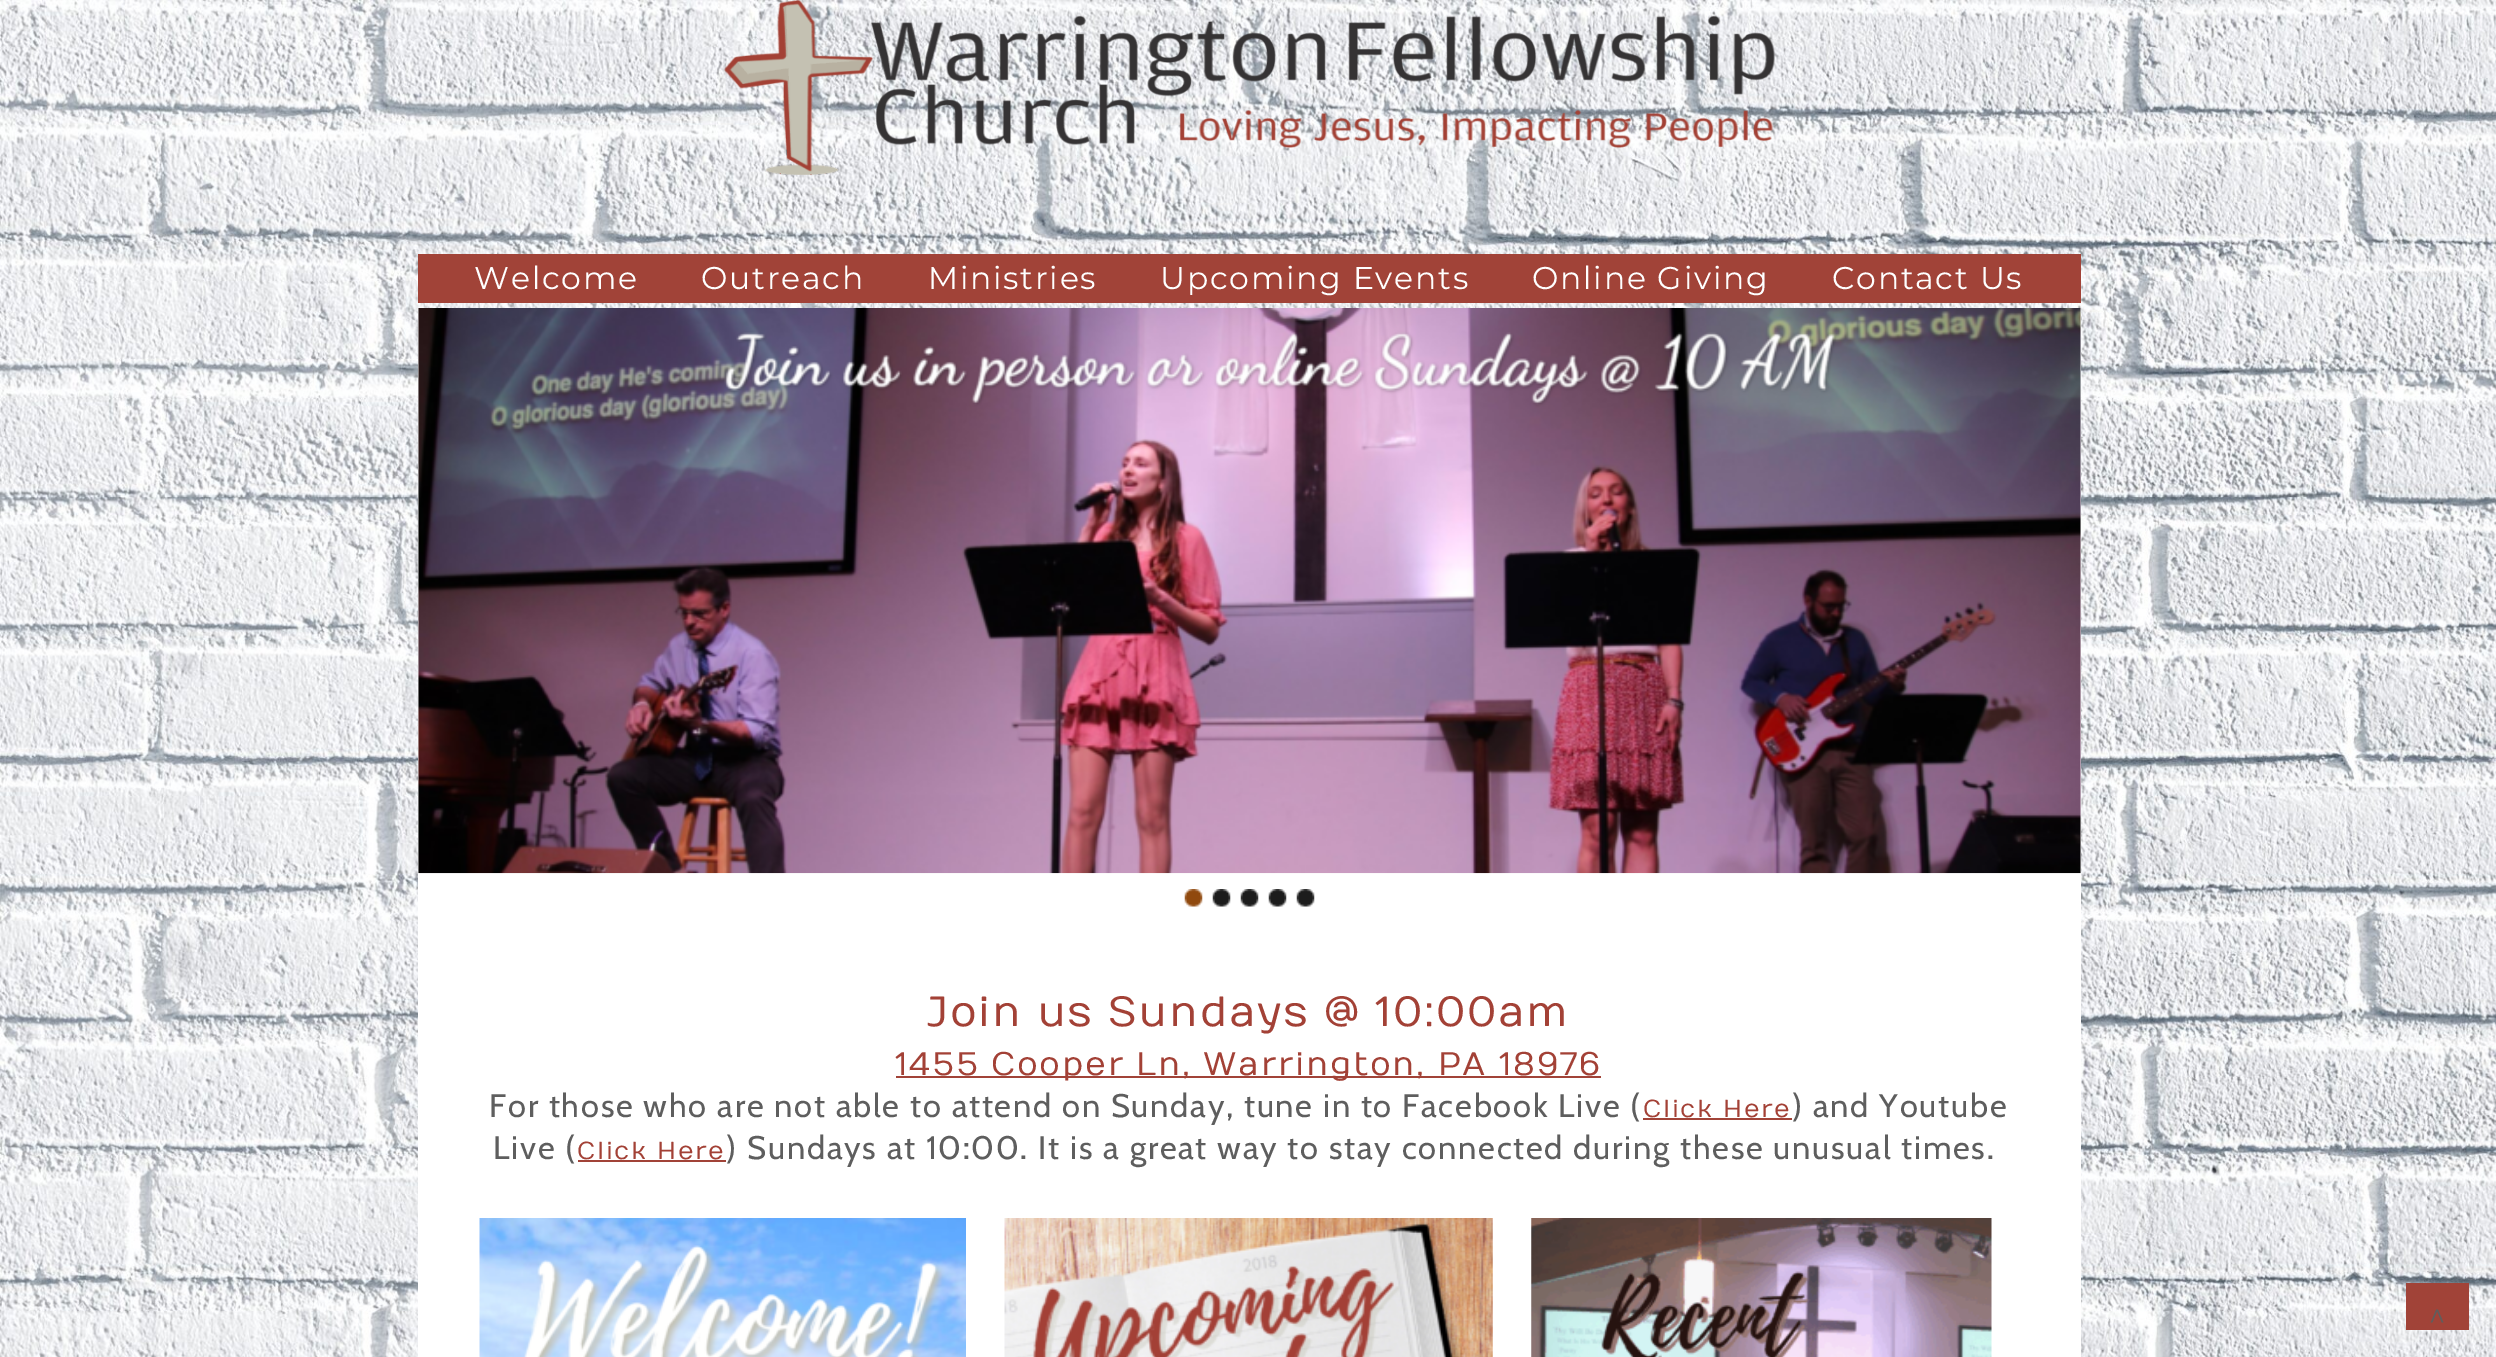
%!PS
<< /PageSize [2496 1357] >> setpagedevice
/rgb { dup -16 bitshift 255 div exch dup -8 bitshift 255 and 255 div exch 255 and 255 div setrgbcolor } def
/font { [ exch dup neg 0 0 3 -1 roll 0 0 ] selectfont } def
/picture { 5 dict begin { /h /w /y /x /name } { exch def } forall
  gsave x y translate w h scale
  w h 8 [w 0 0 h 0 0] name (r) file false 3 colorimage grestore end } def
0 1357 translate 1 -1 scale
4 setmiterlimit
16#FFFFFF rgb
0 0 2496 1357 rectfill
(pic1.raw) 0 0 2496 1357 picture
(pic2.raw) 724 0 1051 175 picture
16#A14338 rgb
418 254 1663 49 rectfill
/Montserrat-Regular 31.5 font
16#FFFFFF rgb
474 289 moveto 1.75 0 (Welcome) ashow
701 289 moveto 1.75 0 (Outreach) ashow
928 289 moveto 1.75 0 (Ministries) ashow
1160 289 moveto 1.75 0 (Upcoming Events) ashow
1532 289 moveto 1.75 0 (Online Giving) ashow
1832 289 moveto 1.75 0 (Contact Us) ashow
418 308 1663 1049 rectfill
(pic3.raw) 418 308 1663 566 picture
(pic4.raw) 1184 889 19 18 picture
(pic5.raw) 1212 889 19 18 picture
(pic5.raw) 1240 889 19 18 picture
(pic5.raw) 1268 889 19 18 picture
(pic5.raw) 1296 889 19 18 picture
/Numans-Regular 42 font
16#A34136 rgb
927 1026 moveto 1.75 0 (Join us Sundays @ 10:00am) ashow
16#A14338 rgb
896 1076 705 2 rectfill
/Numans-Regular 32.65 font
16#A34136 rgb
895 1075 moveto 1.75 0 (1455 Cooper Ln, Warrington, PA 18976) ashow
/Cabin-Regular 32.65 font
16#5E5E5E rgb
489 1117 moveto 1.75 0 (For those who are not able to attend on Sunday, tune in to Facebook Live \() ashow
/Numans-Regular 24.5 font
16#A34136 rgb
1643 1117 moveto 1.75 0 (Click Here) ashow
16#A14338 rgb
1643 1118 149 2 rectfill
/Cabin-Regular 32.65 font
16#5E5E5E rgb
1792 1117 moveto 1.75 0 (\) and Youtube) ashow
493 1159 moveto 1.75 0 (Live \() ashow
/Numans-Regular 24.5 font
16#A34136 rgb
577 1159 moveto 1.75 0 (Click Here) ashow
/Cabin-Regular 32.65 font
16#5E5E5E rgb
726 1159 moveto 1.75 0 (\) Sundays at 10:00. It is a great way to stay connected during these unusual times.) ashow
16#A14338 rgb
578 1160 148 2 rectfill
(pic6.raw) 479 1218 487 139 picture
(pic7.raw) 1004 1218 489 139 picture
(pic8.raw) 1531 1218 461 139 picture
2406 1283 63 47 rectfill
/Montserrat-Regular 31.5 font
16#5E5E5E rgb
2428 1327 moveto 1.75 0 (^) ashow
showpage
